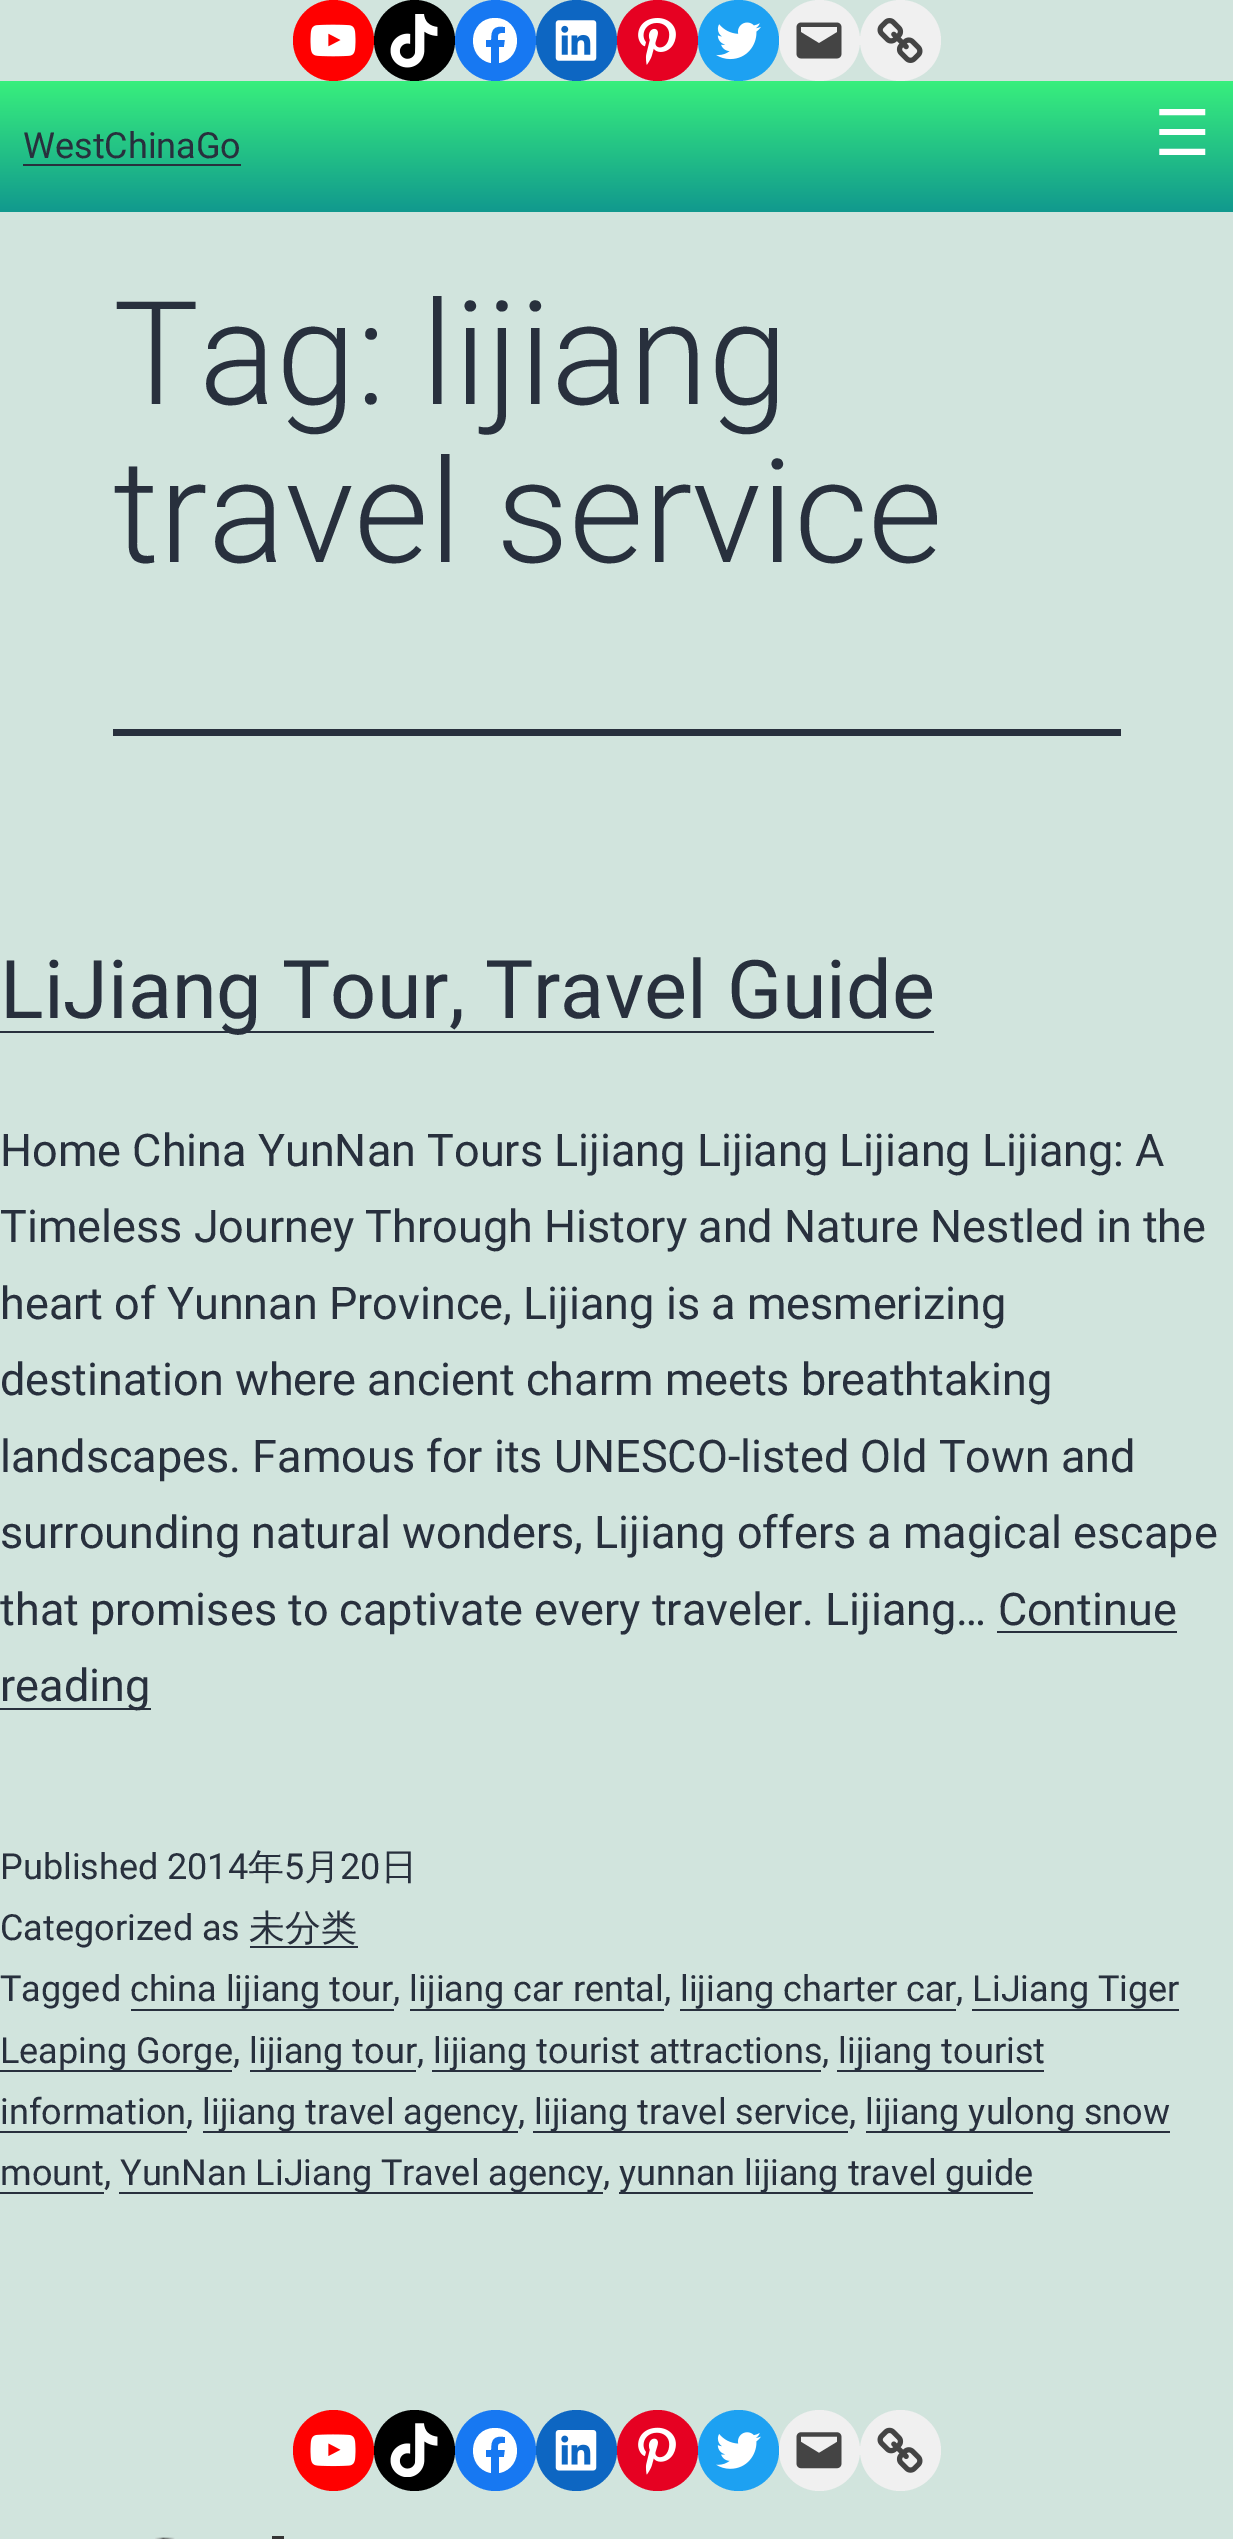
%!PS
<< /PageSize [1233 2539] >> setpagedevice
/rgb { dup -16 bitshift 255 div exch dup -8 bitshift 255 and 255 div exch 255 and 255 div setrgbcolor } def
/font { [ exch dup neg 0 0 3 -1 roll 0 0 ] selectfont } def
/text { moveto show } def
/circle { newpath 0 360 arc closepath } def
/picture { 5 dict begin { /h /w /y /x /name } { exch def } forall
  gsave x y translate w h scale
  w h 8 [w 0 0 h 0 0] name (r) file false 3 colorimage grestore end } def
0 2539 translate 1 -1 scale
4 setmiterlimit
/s1 { /Roboto-Regular 36 font 16#28303D rgb } def
/s2 { /DejaVuSans-Regular 63 font 16#FFFFFF rgb } def
/s3 { /Roboto-Light 144 font 16#28303D rgb } def
/s4 { /Roboto-Regular 81 font 16#28303D rgb } def
/s5 { /Roboto-Regular 45 font 16#28303D rgb } def
/s6 { /WenQuanYiZenHei-Medium 36 font 16#28303D rgb } def
16#D1E4DD rgb
0 0 1233 2539 rectfill
16#FF0000 rgb
333.5 40.5 40.5 circle fill
(pic1.raw) 310 24 46 33 picture
16#000000 rgb
414.5 40.5 40.5 circle fill
(pic2.raw) 390 14 48 54 picture
16#1778F2 rgb
495.5 40.5 40.5 circle fill
16#FFFFFF rgb
495 18 moveto 468 18 465 58 491 63 curveto 491 47 lineto 486 47 lineto 486 40 lineto 491 40 lineto 491 30 493 25 505 27 curveto 505 33 lineto 498 33 498 34 498 40 curveto 505 40 lineto 504 47 lineto 499 47 lineto 499 63 lineto 525 58 522 18 495 18 curveto closepath fill
16#0D66C2 rgb
576.5 40.5 40.5 circle fill
(pic3.raw) 555 20 42 41 picture
16#E60122 rgb
657.5 40.5 40.5 circle fill
(pic4.raw) 638 18 38 47 picture
16#1DA1F2 rgb
738.5 40.5 40.5 circle fill
(pic5.raw) 716 22 45 38 picture
16#F0F0F0 rgb
819.5 40.5 40.5 circle fill
(pic6.raw) 796 22 46 37 picture
900.5 40.5 40.5 circle fill
(pic7.raw) 877 18 46 45 picture
gsave 0 81 moveto 1233 81 lineto 1233 212 lineto 0 212 lineto closepath clip newpath
<< /ShadingType 2 /ColorSpace /DeviceRGB /Coords [617 81 617 212] /Extend [true true] /Function << /FunctionType 2 /Domain [0 1] /C0 [0.22 0.937 0.49] /C1 [0.067 0.6 0.557] /N 1 >> >> shfill grestore
s1
(WestChinaGo) 23 158 text
23 164 218 2 rectfill
s2
(☰) 1154 155 text
16#28303D rgb
113 729 1008 7 rectfill
s3
(Tag: lijiang) 113 404 text
(travel service) 113 562 text
0 1031 934 2 rectfill
s4
(LiJiang Tour, Travel Guide) 0 1018 text
s5
(Home China YunNan Tours Lijiang Lijiang Lijiang Lijiang: A) 0 1166 text
(Timeless Journey Through History and Nature Nestled in the) 0 1242 text
(heart of Yunnan Province, Lijiang is a mesmerizing) 0 1319 text
(destination where ancient charm meets breathtaking) 0 1395 text
(landscapes. Famous for its UNESCO-listed Old Town and) 0 1472 text
(surrounding natural wonders, Lijiang offers a magical escape) 0 1548 text
(that promises to captivate every traveler. Lijiang… Continue) 0 1625 text
0 1708 151 2 rectfill
(reading) 0 1701 text
997 1631 180 2 rectfill
s1
(Published 2014) 0 1879 text
s6
(年) 248 1879 text
s1
(5) 284 1879 text
s6
(月) 304 1879 text
s1
(20) 340 1879 text
s6
(日) 381 1879 text
s1
(Categorized as) 0 1940 text
s6
(未分类) 249 1940 text
250 1946 108 2 rectfill
s1
(Tagged china lijiang tour, lijiang car rental, lijiang charter car, LiJiang Tiger) 0 2001 text
131 2009 263 2 rectfill
410 2009 254 2 rectfill
680 2009 276 2 rectfill
0 2070 232 2 rectfill
(Leaping Gorge,) 0 2063 text
972 2009 207 2 rectfill
250 2070 166 2 rectfill
(lijiang tour,) 249 2063 text
432 2070 389 2 rectfill
(lijiang tourist attractions,) 433 2063 text
837 2070 207 2 rectfill
(lijiang tourist) 838 2063 text
(information,) 0 2124 text
0 2131 187 2 rectfill
203 2131 315 2 rectfill
(lijiang travel agency,) 202 2124 text
533 2131 315 2 rectfill
(lijiang travel service,) 534 2124 text
866 2131 304 2 rectfill
(lijiang yulong snow) 865 2124 text
(mount,) 0 2185 text
0 2192 104 2 rectfill
119 2192 484 2 rectfill
(YunNan LiJiang Travel agency,) 120 2185 text
619 2192 414 2 rectfill
(yunnan lijiang travel guide) 619 2185 text
16#FF0000 rgb
333.5 2450.5 40.5 circle fill
(pic8.raw) 310 2434 46 33 picture
16#000000 rgb
414.5 2450.5 40.5 circle fill
(pic9.raw) 390 2423 48 54 picture
16#1778F2 rgb
495.5 2450.5 40.5 circle fill
16#FFFFFF rgb
495 2428 moveto 468 2428 465 2468 491 2473 curveto 491 2457 lineto 486 2457 lineto 486 2450 lineto 491 2450 lineto 491 2440 493 2435 505 2437 curveto 505 2443 lineto 498 2443 498 2444 498 2450 curveto 505 2450 lineto 504 2457 lineto 499 2457 lineto 499 2473 lineto 525 2468 522 2428 495 2428 curveto closepath fill
16#0D66C2 rgb
576.5 2450.5 40.5 circle fill
(pic10.raw) 555 2430 42 41 picture
16#E60122 rgb
657.5 2450.5 40.5 circle fill
(pic11.raw) 638 2427 38 48 picture
16#1DA1F2 rgb
738.5 2450.5 40.5 circle fill
(pic12.raw) 716 2432 45 37 picture
16#F0F0F0 rgb
819.5 2450.5 40.5 circle fill
(pic13.raw) 796 2432 46 37 picture
900.5 2450.5 40.5 circle fill
(pic14.raw) 877 2427 46 46 picture
(pic15.raw) 155 2537 20 2 picture
16#333333 rgb
272 2536 12 3 rectfill
showpage
